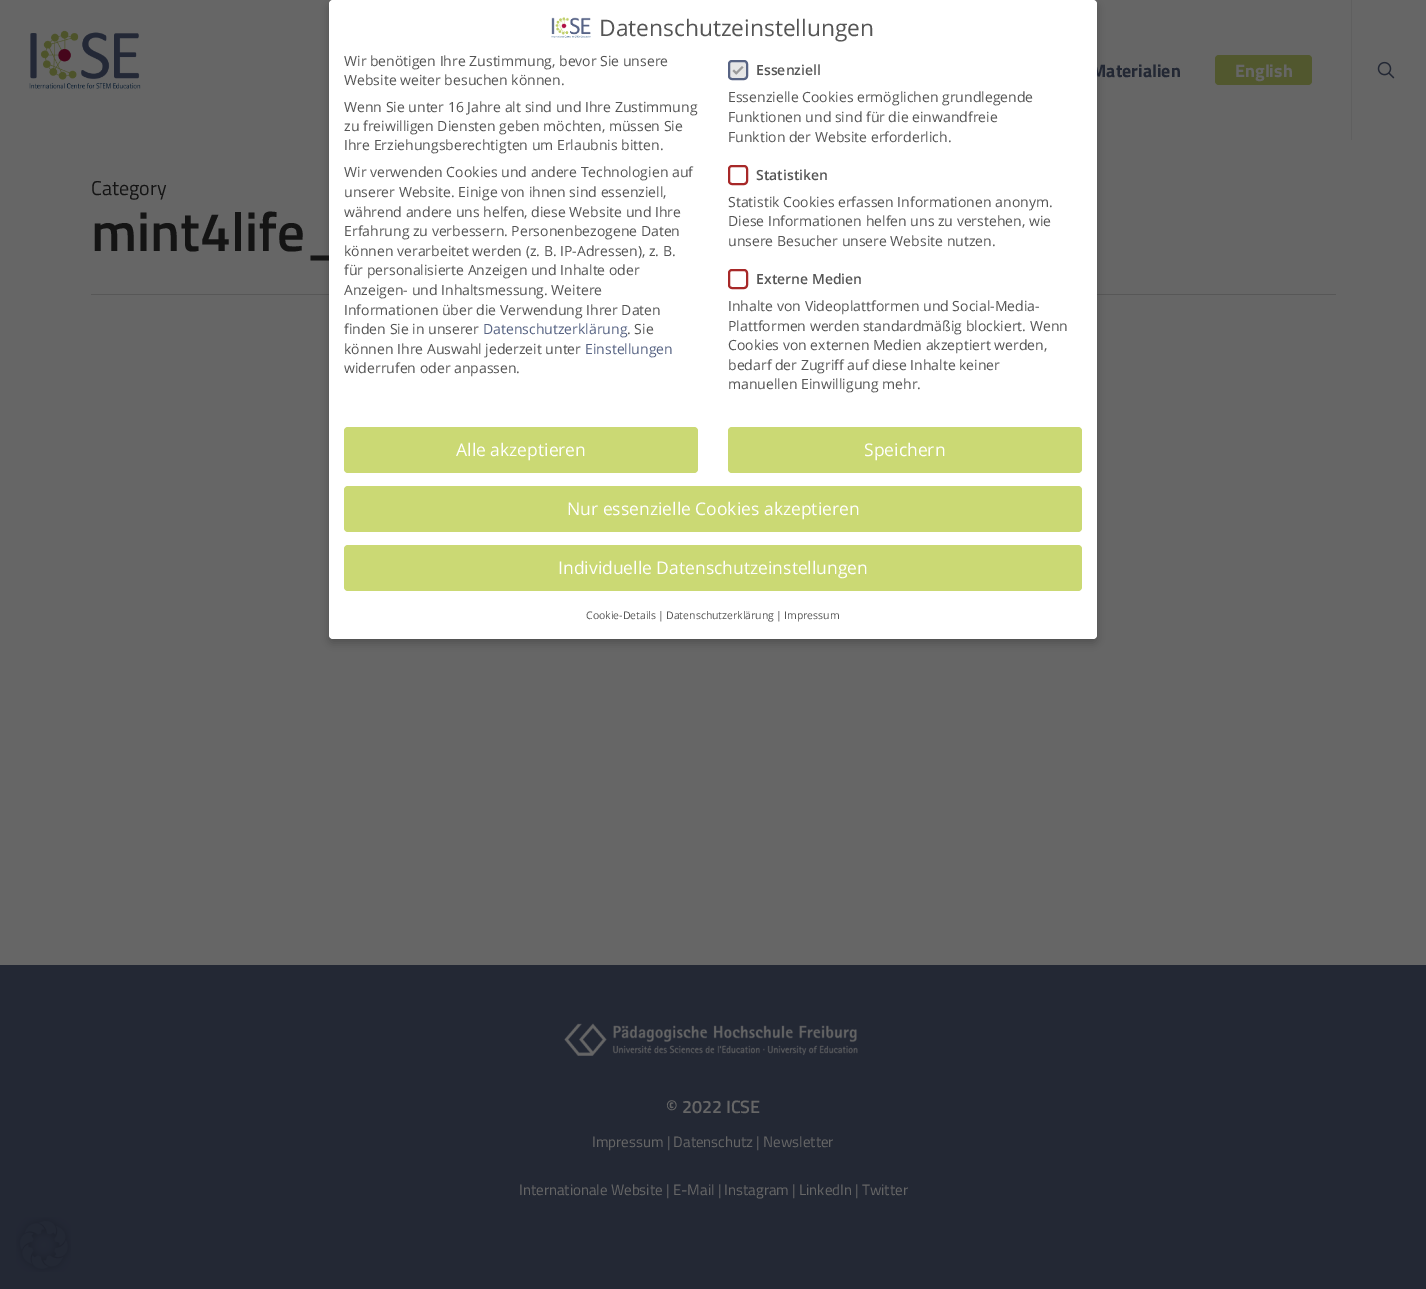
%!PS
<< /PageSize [1426 1289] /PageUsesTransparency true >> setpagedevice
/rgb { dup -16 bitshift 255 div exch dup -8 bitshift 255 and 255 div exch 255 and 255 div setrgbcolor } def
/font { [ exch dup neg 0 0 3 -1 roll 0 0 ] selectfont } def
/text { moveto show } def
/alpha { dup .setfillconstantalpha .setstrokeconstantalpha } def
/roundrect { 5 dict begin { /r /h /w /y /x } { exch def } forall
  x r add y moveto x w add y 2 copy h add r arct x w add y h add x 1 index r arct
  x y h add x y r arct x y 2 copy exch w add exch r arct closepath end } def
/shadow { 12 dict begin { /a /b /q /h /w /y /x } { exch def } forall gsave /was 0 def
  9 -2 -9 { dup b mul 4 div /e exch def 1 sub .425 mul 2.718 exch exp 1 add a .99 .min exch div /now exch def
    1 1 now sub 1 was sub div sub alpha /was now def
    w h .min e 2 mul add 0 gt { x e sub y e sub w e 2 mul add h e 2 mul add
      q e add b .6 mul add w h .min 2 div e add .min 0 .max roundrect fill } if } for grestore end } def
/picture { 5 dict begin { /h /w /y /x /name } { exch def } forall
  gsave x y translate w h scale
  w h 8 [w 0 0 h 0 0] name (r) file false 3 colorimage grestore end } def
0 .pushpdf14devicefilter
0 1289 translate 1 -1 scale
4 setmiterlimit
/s1 { /TitilliumWeb-Bold 18 font 16#232834 rgb } def
/s2 { /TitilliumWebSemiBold-SemiBold 55 font 16#141414 rgb } def
/s3 { /OpenSans-Regular 22.75 font 16#555555 rgb } def
/s4 { /OpenSans-Regular 14 font 16#555555 rgb } def
/s5 { /OpenSans-Regular 14 font 16#576383 rgb } def
/s6 { /OpenSans-SemiBold 14 font 16#555555 rgb } def
/s7 { /OpenSans-Regular 17.5 font 16#FFFFFF rgb } def
/s8 { /OpenSans-Regular 10.5 font 16#555555 rgb } def
/s9 { /TitilliumWeb-Bold 18 font 16#666666 rgb } def
/s10 { /TitilliumWeb-Regular 20 font 16#141414 rgb } def
/s11 { /TitilliumWebSemiBold-SemiBold 18 font 16#666666 rgb } def
/s12 { /TitilliumWeb-Regular 15 font 16#666666 rgb } def
16#666666 rgb
0 0 1426 1289 rectfill
16#575757 rgb
91 294 1245 1 rectfill
16#000000 rgb
329 4 768 639 4 4 0.2 shadow
s1
(Materialien) 1091 77 text
s2
(mint4life_) 91 251 text
16#FFFFFF rgb
329 0 768 639 4 roundrect fill
(pic1.raw) 551 17 40 21 picture
s3
(Datenschutzeinstellungen) 599 36 text
s4
(Wir benötigen Ihre Zustimmung, bevor Sie unsere) 344 66 text
(Website weiter besuchen können.) 344 85 text
(Wenn Sie unter 16 Jahre alt sind und Ihre Zustimmung) 344 112 text
(zu freiwilligen Diensten geben möchten, müssen Sie) 344 131 text
(Ihre Erziehungsberechtigten um Erlaubnis bitten.) 344 150 text
(Wir verwenden Cookies und andere Technologien auf) 344 177 text
(unserer Website. Einige von ihnen sind essenziell,) 344 197 text
(während andere uns helfen, diese Website und Ihre) 344 217 text
(Erfahrung zu verbessern. Personenbezogene Daten) 344 236 text
(können verarbeitet werden \(z. B. IP-Adressen\), z. B.) 344 256 text
(für personalisierte Anzeigen und Inhalte oder) 344 275 text
(Anzeigen- und Inhaltsmessung. Weitere) 344 295 text
(Informationen über die Verwendung Ihrer Daten) 344 315 text
(finden Sie in unserer) 344 334 text
s5
(Datenschutzerklärung) 483 334 text
s4
(. Sie) 627 334 text
(können Ihre Auswahl jederzeit unter) 344 354 text
s5
(Einstellungen) 585 354 text
s4
(widerrufen oder anpassen.) 344 373 text
16#E6E6E6 rgb
729 61 18 18 3 roundrect gsave fill grestore
16#576383 rgb
2 setlinewidth
stroke
16#999999 rgb
742 66 moveto 743.5 67.5 lineto 736.5 74.5 lineto 735 73 lineto closepath fill
734 69.5 moveto 737.5 73 lineto 736 74.5 lineto 732.5 71 lineto closepath fill
s6
(Essenziell) 756 75 text
s4
(Essenzielle Cookies ermöglichen grundlegende) 728 102 text
(Funktionen und sind für die einwandfreie) 728 122 text
(Funktion der Website erforderlich.) 728 142 text
16#A72828 rgb
729 166 18 18 3 roundrect stroke
s6
(Statistiken) 756 180 text
s4
(Statistik Cookies erfassen Informationen anonym.) 728 207 text
(Diese Informationen helfen uns zu verstehen, wie) 728 226 text
(unsere Besucher unsere Website nutzen.) 728 246 text
16#A72828 rgb
729 270 18 18 3 roundrect stroke
s6
(Externe Medien) 756 284 text
s4
(Inhalte von Videoplattformen und Social-Media-) 728 311 text
(Plattformen werden standardmäßig blockiert. Wenn) 728 331 text
(Cookies von externen Medien akzeptiert werden,) 728 350 text
(bedarf der Zugriff auf diese Inhalte keiner) 728 370 text
(manuellen Einwilligung mehr.) 728 389 text
16#CBD974 rgb
344 427 354 46 4 roundrect fill
s7
(Alle akzeptieren) 456 456 text
16#CBD974 rgb
728 427 354 46 4 roundrect fill
s7
(Speichern) 864 456 text
16#CBD974 rgb
344 486 738 46 4 roundrect fill
s7
(Nur essenzielle Cookies akzeptieren) 567 515 text
16#CBD974 rgb
344 545 738 46 4 roundrect fill
s7
(Individuelle Datenschutzeinstellungen) 558 574 text
s8
(Cookie-Details) 586 619 text
(|) 658 619 text
(Datenschutzerklärung) 666 619 text
(|) 776 619 text
(Impressum) 784 619 text
16#232834 rgb
0 965 1426 324 rectfill
(pic2.raw) 16 1217 55 55 picture
(pic3.raw) 29 30 112 59 picture
16#51572E rgb
1215 55 97 30 4 roundrect fill
s9
(English) 1235 77 text
16#5F5F5F rgb
1351 0 1 140 rectfill
(pic4.raw) 1377 61 18 18 picture
s10
(Category) 91 195 text
(pic5.raw) 564 1023 294 33 picture
s11
(© 2022 ICSE) 666 1113 text
s12
(Impressum | Datenschutz | Newsletter) 592 1147 text
(Internationale Website | E-Mail | Instagram | LinkedIn | Twitter) 519 1195 text
.poppdf14devicefilter showpage
